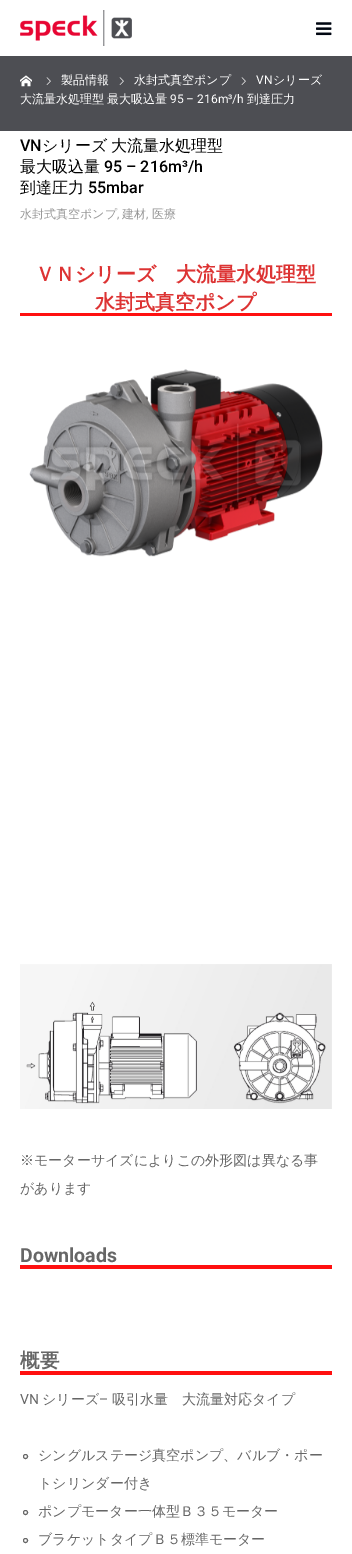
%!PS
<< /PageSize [352 1554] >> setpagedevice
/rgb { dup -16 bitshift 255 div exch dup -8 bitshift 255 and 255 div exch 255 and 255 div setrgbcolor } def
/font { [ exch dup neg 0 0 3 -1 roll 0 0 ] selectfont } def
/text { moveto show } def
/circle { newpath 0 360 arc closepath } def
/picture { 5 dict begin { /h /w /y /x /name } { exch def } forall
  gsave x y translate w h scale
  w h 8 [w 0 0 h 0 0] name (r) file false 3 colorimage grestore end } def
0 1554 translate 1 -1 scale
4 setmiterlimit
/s1 { /WenQuanYiZenHei-Medium 12 font 16#FFFFFF rgb } def
/s2 { /Roboto-Regular 12 font 16#FFFFFF rgb } def
/s3 { /Roboto-Medium 16 font 16#000000 rgb } def
/s4 { /WenQuanYiZenHei-Medium 16 font 16#000000 rgb } def
/s5 { /WenQuanYiZenHei-Medium 12 font 16#999999 rgb } def
/s6 { /Roboto-Regular 12 font 16#999999 rgb } def
/s7 { /WenQuanYiZenHei-Bold 20 font 16#DD3333 rgb } def
/s8 { /WenQuanYiZenHei-Medium 14 font 16#666666 rgb } def
/s9 { /Roboto-Bold 19.5 font 16#666666 rgb } def
/s10 { /WenQuanYiZenHei-Bold 19.5 font 16#666666 rgb } def
/s11 { /Roboto-Regular 14 font 16#666666 rgb } def
16#FFFFFF rgb
0 0 352 1554 rectfill
(pic1.raw) 20 10 112 36 picture
(pic2.raw) 316 22 16 14 picture
16#4D4E53 rgb
0 56 352 75 rectfill
(pic3.raw) 119 77 5 8 picture
s1
(水封式真空ポンプ) 134 84 text
(pic3.raw) 241 77 5 8 picture
s2
(VN) 256 84 text
s1
(シリーズ) 273 84 text
(大流量水処理型) 20 103 text
(最大吸込量) 107 103 text
s2
(95 – 216m³/h) 170 103 text
s1
(到達圧力) 247 103 text
(pic4.raw) 20 75 12 12 picture
(pic3.raw) 46 77 5 8 picture
(製品情報) 61 84 text
s3
(VN) 20 151 text
/WenQuanYiZenHei-Medium 16 font
42 151 moveto -1 0 32 (シリーズ 大流量水処理型) widthshow
(最大吸込量) 20 172 text
s3
(95 – 216m³/h) 104 172 text
s4
(到達圧力) 20 193 text
s3
(55mbar) 88 193 text
s5
(水封式真空ポンプ) 20 218 text
s6
(,) 117 218 text
s5
(建材) 122 218 text
s6
(,) 146 218 text
s5
(医療) 152 218 text
16#FF1010 rgb
20 313 312 3 rectfill
s7
(ＶＮシリーズ　大流量水処理型) 35 281 text
(水封式真空ポンプ) 95 309 text
(pic5.raw) 29 369 294 188 picture
(pic6.raw) 20 964 312 145 picture
s8
(※モーターサイズによりこの外形図は異なる事) 20 1165 text
(があります) 20 1193 text
16#FF1010 rgb
20 1265 312 4 rectfill
s9
(Downloads) 20 1262 text
16#FF1010 rgb
20 1371 312 4 rectfill
s10
(概要) 20 1367 text
s11
(VN) 20 1404 text
s8
(シリーズ) 42 1404 text
s11
(–) 99 1404 text
s8
(吸引水量　大流量対応タイプ) 112 1404 text
25.5 1456.5 2 circle stroke
(シングルステージ真空ポンプ、バルブ・ポー) 38 1460 text
(トシリンダー付き) 38 1488 text
25.5 1512.5 2 circle stroke
(ポンプモーター一体型Ｂ３５モーター) 38 1516 text
25.5 1540.5 2 circle stroke
(ブラケットタイプＢ５標準モーター) 38 1544 text
showpage
